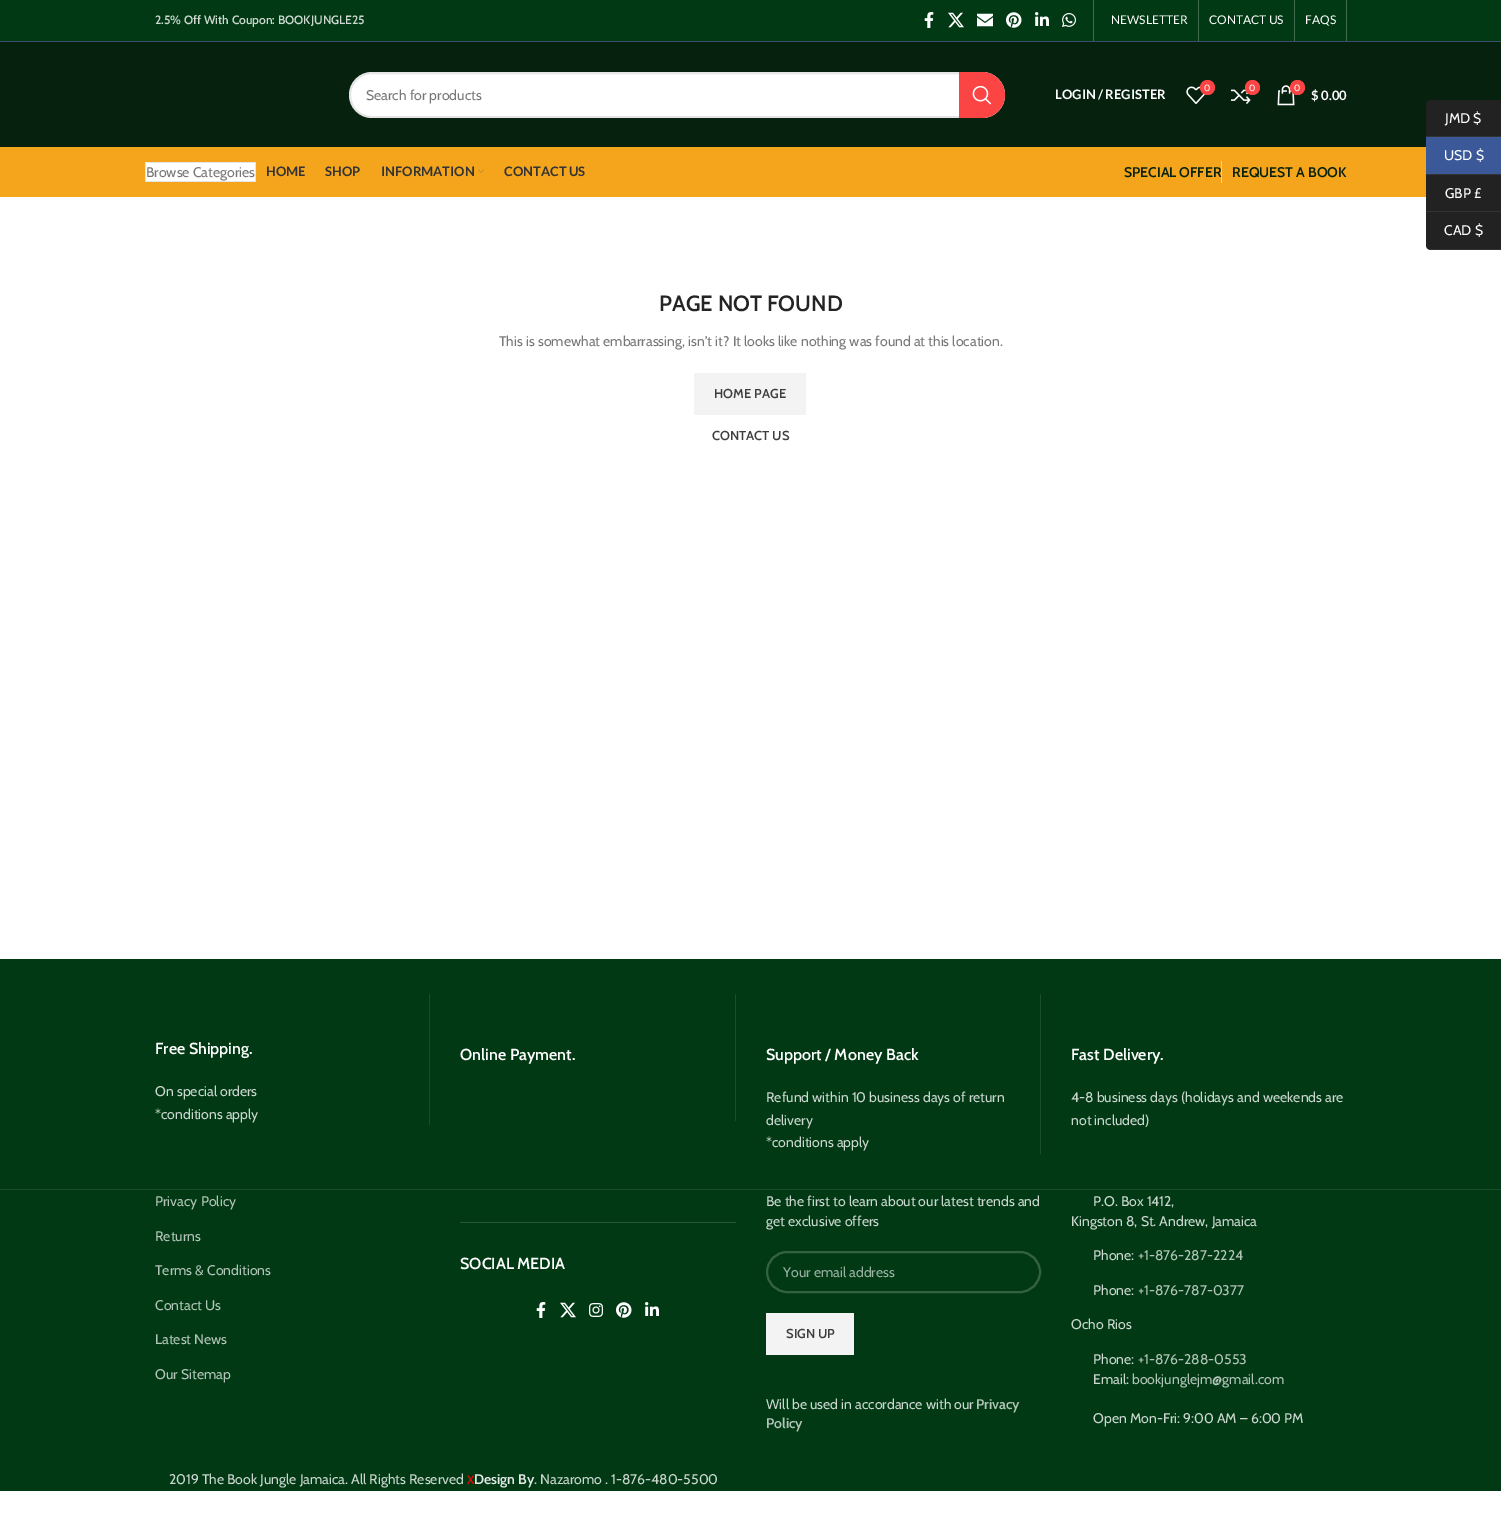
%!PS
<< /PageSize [1501 1524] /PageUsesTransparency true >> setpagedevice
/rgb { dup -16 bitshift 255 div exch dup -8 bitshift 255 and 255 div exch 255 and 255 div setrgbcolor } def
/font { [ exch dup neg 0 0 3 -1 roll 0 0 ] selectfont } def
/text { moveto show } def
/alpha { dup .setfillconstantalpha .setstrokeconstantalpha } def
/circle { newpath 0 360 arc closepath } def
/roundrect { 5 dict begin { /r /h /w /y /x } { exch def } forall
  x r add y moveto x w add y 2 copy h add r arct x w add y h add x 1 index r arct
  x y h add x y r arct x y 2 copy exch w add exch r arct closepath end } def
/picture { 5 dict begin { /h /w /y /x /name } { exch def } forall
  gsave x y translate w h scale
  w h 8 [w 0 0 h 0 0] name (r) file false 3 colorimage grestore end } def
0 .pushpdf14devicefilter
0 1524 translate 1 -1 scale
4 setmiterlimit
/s1 { /Cabin-SemiBold 12 font 16#CCD7D0 rgb } def
/s2 { /Lato-Regular 12 font 16#FFFFFF rgb } def
/s3 { /Cabin-Regular 14 font 16#777777 rgb } def
/s4 { /Lato-Bold 13 font 16#FFFFFF rgb } def
/s5 { /Cabin-Regular 9 font 16#FFFFFF rgb } def
/s6 { /Lato-Bold 13 font 16#333333 rgb } def
/s7 { /Cabin-SemiBold 14 font 16#07210F rgb } def
/s8 { /Cabin-SemiBold 22 font 16#242424 rgb } def
/s9 { /Cabin-SemiBold 13 font 16#3E3E3E rgb } def
/s10 { /Cabin-SemiBold 16 font 16#FFFFFF rgb } def
/s11 { /Cabin-Regular 14 font 16#CCD7D0 rgb } def
/s12 { /Cabin-Regular 14 font 16#B3C4B8 rgb } def
/s13 { /Cabin-Regular 14 font 16#99B0A1 rgb } def
/s14 { /Cabin-SemiBold 14 font 16#B3C4B8 rgb } def
/s15 { /Cabin-SemiBold 12 font 16#FF0000 rgb } def
/s16 { /Cabin-SemiBold 14 font 16#E6EBE7 rgb } def
/s17 { /Cabin-Regular 14 font 16#FFFFFF rgb } def
16#FFFFFF rgb
0 0 1501 1524 rectfill
16#003913 rgb
0 0 1501 41 rectfill
16#3A4D69 rgb
0 41 1501 1 rectfill
s1
(2.5% Off With Coupon: BOOKJUNGLE25) 155 24 text
(pic1.raw) 924 12 10 16 picture
(pic2.raw) 948 12 16 16 picture
(pic3.raw) 977 13 16 14 picture
(pic4.raw) 1006 12 16 16 picture
(pic5.raw) 1035 12 14 14 picture
(pic6.raw) 1062 13 14 14 picture
16#406B4E rgb
1093 0 1 41 rectfill
s2
(NEWSLETTER) 1111 24 text
16#406B4E rgb
1198 0 1 41 rectfill
s2
(CONTACT US) 1209 24 text
16#406B4E rgb
1294 0 1 41 rectfill
s2
(FAQS) 1305 24 text
16#406B4E rgb
1346 0 1 41 rectfill
16#07210F rgb
0 42 1501 105 rectfill
16#FFFFFF rgb
349 72 656 46 23 roundrect fill
0.1 alpha
16#000000 rgb
2 setlinewidth
350 73 654 44 22 roundrect stroke
1 alpha
s3
(Search for products) 366 100 text
16#FB4545 rgb
959 72 moveto 982 72 lineto 994.5 72 1005 82.5 1005 95 curveto 1005 107.5 994.5 118 982 118 curveto 959 118 lineto closepath fill
(pic7.raw) 972 85 20 20 picture
s4
(LOGIN / REGISTER) 1055 99 text
(pic8.raw) 1186 86 20 18 picture
16#FB4545 rgb
1207.5 87.5 7.5 circle fill
s5
(0) 1204 91 text
(pic9.raw) 1231 89 20 15 picture
16#FB4545 rgb
1252.5 87.5 7.5 circle fill
s5
(0) 1249 91 text
(pic10.raw) 1277 85 18 21 picture
16#FB4545 rgb
1297.5 87.5 7.5 circle fill
s5
(0) 1294 91 text
s4
($ 0.00) 1311 100 text
16#F4A51C rgb
0 147 1426 50 rectfill
16#FFFFFF rgb
145 162 111 20 rectfill
s3
(Browse Categories) 146 177 text
16#E6E6E6 rgb
145 162 moveto 146 162 lineto 146 163 lineto closepath 146 182 moveto 145 182 lineto 146 181 lineto closepath fill
0.2 alpha
16#818181 rgb
145 182 moveto 145 162 lineto 146 163 lineto 146 181 lineto closepath fill
1 alpha
16#E6E6E6 rgb
146 162 moveto 256 162 lineto 255 163 lineto 146 163 lineto closepath fill
0.2 alpha
16#818181 rgb
256 162 moveto 256 182 lineto 255 181 lineto 255 163 lineto closepath fill
256 182 moveto 146 182 lineto 146 181 lineto 255 181 lineto closepath fill
1 alpha
s6
(HOME) 266 176 text
(SHOP) 325 176 text
(INFORMATION) 381 176 text
(pic11.raw) 478 169 6 4 picture
(CONTACT US) 504 176 text
16#F9D18B rgb
1221 161 1 22 rectfill
s7
(SPECIAL OFFER) 1124 177 text
(REQUEST A BOOK) 1232 177 text
s8
(PAGE NOT FOUND) 659 311 text
s3
(This is somewhat embarrassing, isn’t it? It looks like nothing was found at this location.) 499 346 text
16#F3F3F3 rgb
694 373 112 42 rectfill
s9
(HOME PAGE) 714 398 text
(CONTACT US) 712 440 text
16#003913 rgb
0 959 1501 230 rectfill
16#1A4D2B rgb
0 1189 1501 1 rectfill
429 994 1 131 rectfill
s10
(Free Shipping.) 155 1054 text
s11
(On special orders) 155 1096 text
(*conditions apply) 155 1119 text
16#1A4D2B rgb
735 994 1 127 rectfill
s10
(Online Payment.) 460 1060 text
16#1A4D2B rgb
1040 994 1 160 rectfill
s10
(Support / Money Back) 766 1060 text
s11
(Refund within 10 business days of return) 766 1102 text
(delivery) 766 1125 text
(*conditions apply) 766 1147 text
s10
(Fast Delivery.) 1071 1060 text
s11
(4-8 business days \(holidays and weekends are) 1071 1102 text
(not included\)) 1071 1125 text
16#003913 rgb
0 1190 1501 301 rectfill
s12
(Privacy Policy) 155 1206 text
(Returns) 155 1241 text
(Terms & Conditions) 155 1275 text
(Contact Us) 155 1310 text
(Latest News) 155 1344 text
(Our Sitemap) 155 1379 text
16#265736 rgb
460 1222 276 1 rectfill
s10
(SOCIAL MEDIA) 460 1269 text
(pic1.raw) 536 1302 10 16 picture
(pic2.raw) 560 1302 16 16 picture
(pic12.raw) 589 1303 14 14 picture
(pic4.raw) 616 1302 16 16 picture
(pic5.raw) 645 1302 14 14 picture
s11
(Be the first to learn about our latest trends and) 766 1206 text
(get exclusive offers) 766 1226 text
16#336142 rgb
767 1252 273 40 20 roundrect stroke
s13
(Your email address) 783 1277 text
16#F3F3F3 rgb
766 1313 88 42 rectfill
s9
(SIGN UP) 786 1338 text
s11
(Will be used in accordance with our) 766 1409 text
s14
(Privacy) 976 1409 text
(Policy) 766 1428 text
s11
(P.O. Box 1412,) 1093 1206 text
(Kingston 8, St. Andrew, Jamaica) 1071 1226 text
(Phone:) 1093 1260 text
s12
(+1-876-287-2224) 1138 1260 text
s11
(Phone:) 1093 1295 text
s12
(+1-876-787-0377) 1138 1295 text
s11
(Ocho Rios) 1071 1329 text
(Phone:) 1093 1364 text
s12
(+1-876-288-0553) 1138 1364 text
s11
(Email:) 1093 1384 text
s12
(bookjunglejm@gmail.com) 1132 1384 text
s11
(Open Mon-Fri: 9:00 AM – 6:00 PM) 1093 1423 text
(2019 The Book Jungle Jamaica. All Rights Reserved) 169 1484 text
s15
(X) 467 1484 text
s16
(Design By) 474 1484 text
s11
(. Nazaromo . 1-876-480-5500) 534 1484 text
16#222222 rgb
1431 100 moveto 1501 100 lineto 1501 137 lineto 1426 137 lineto 1426 105 lineto 1426 102 1428 100 1431 100 curveto closepath fill
16#333333 rgb
1426 136 75 1 rectfill
s17
(JMD $) 1445 123 text
16#3B5998 rgb
1426 137 75 37 rectfill
16#333333 rgb
1426 174 75 1 rectfill
s17
(USD $) 1444 160 text
16#222222 rgb
1426 175 75 36 rectfill
16#333333 rgb
1426 211 75 1 rectfill
s17
(GBP £) 1445 198 text
16#222222 rgb
1426 212 moveto 1501 212 lineto 1501 250 lineto 1431 250 lineto 1428 250 1426 248 1426 245 curveto closepath fill
16#333333 rgb
1429 249 72 1 rectfill
s17
(CAD $) 1444 235 text
.poppdf14devicefilter showpage
